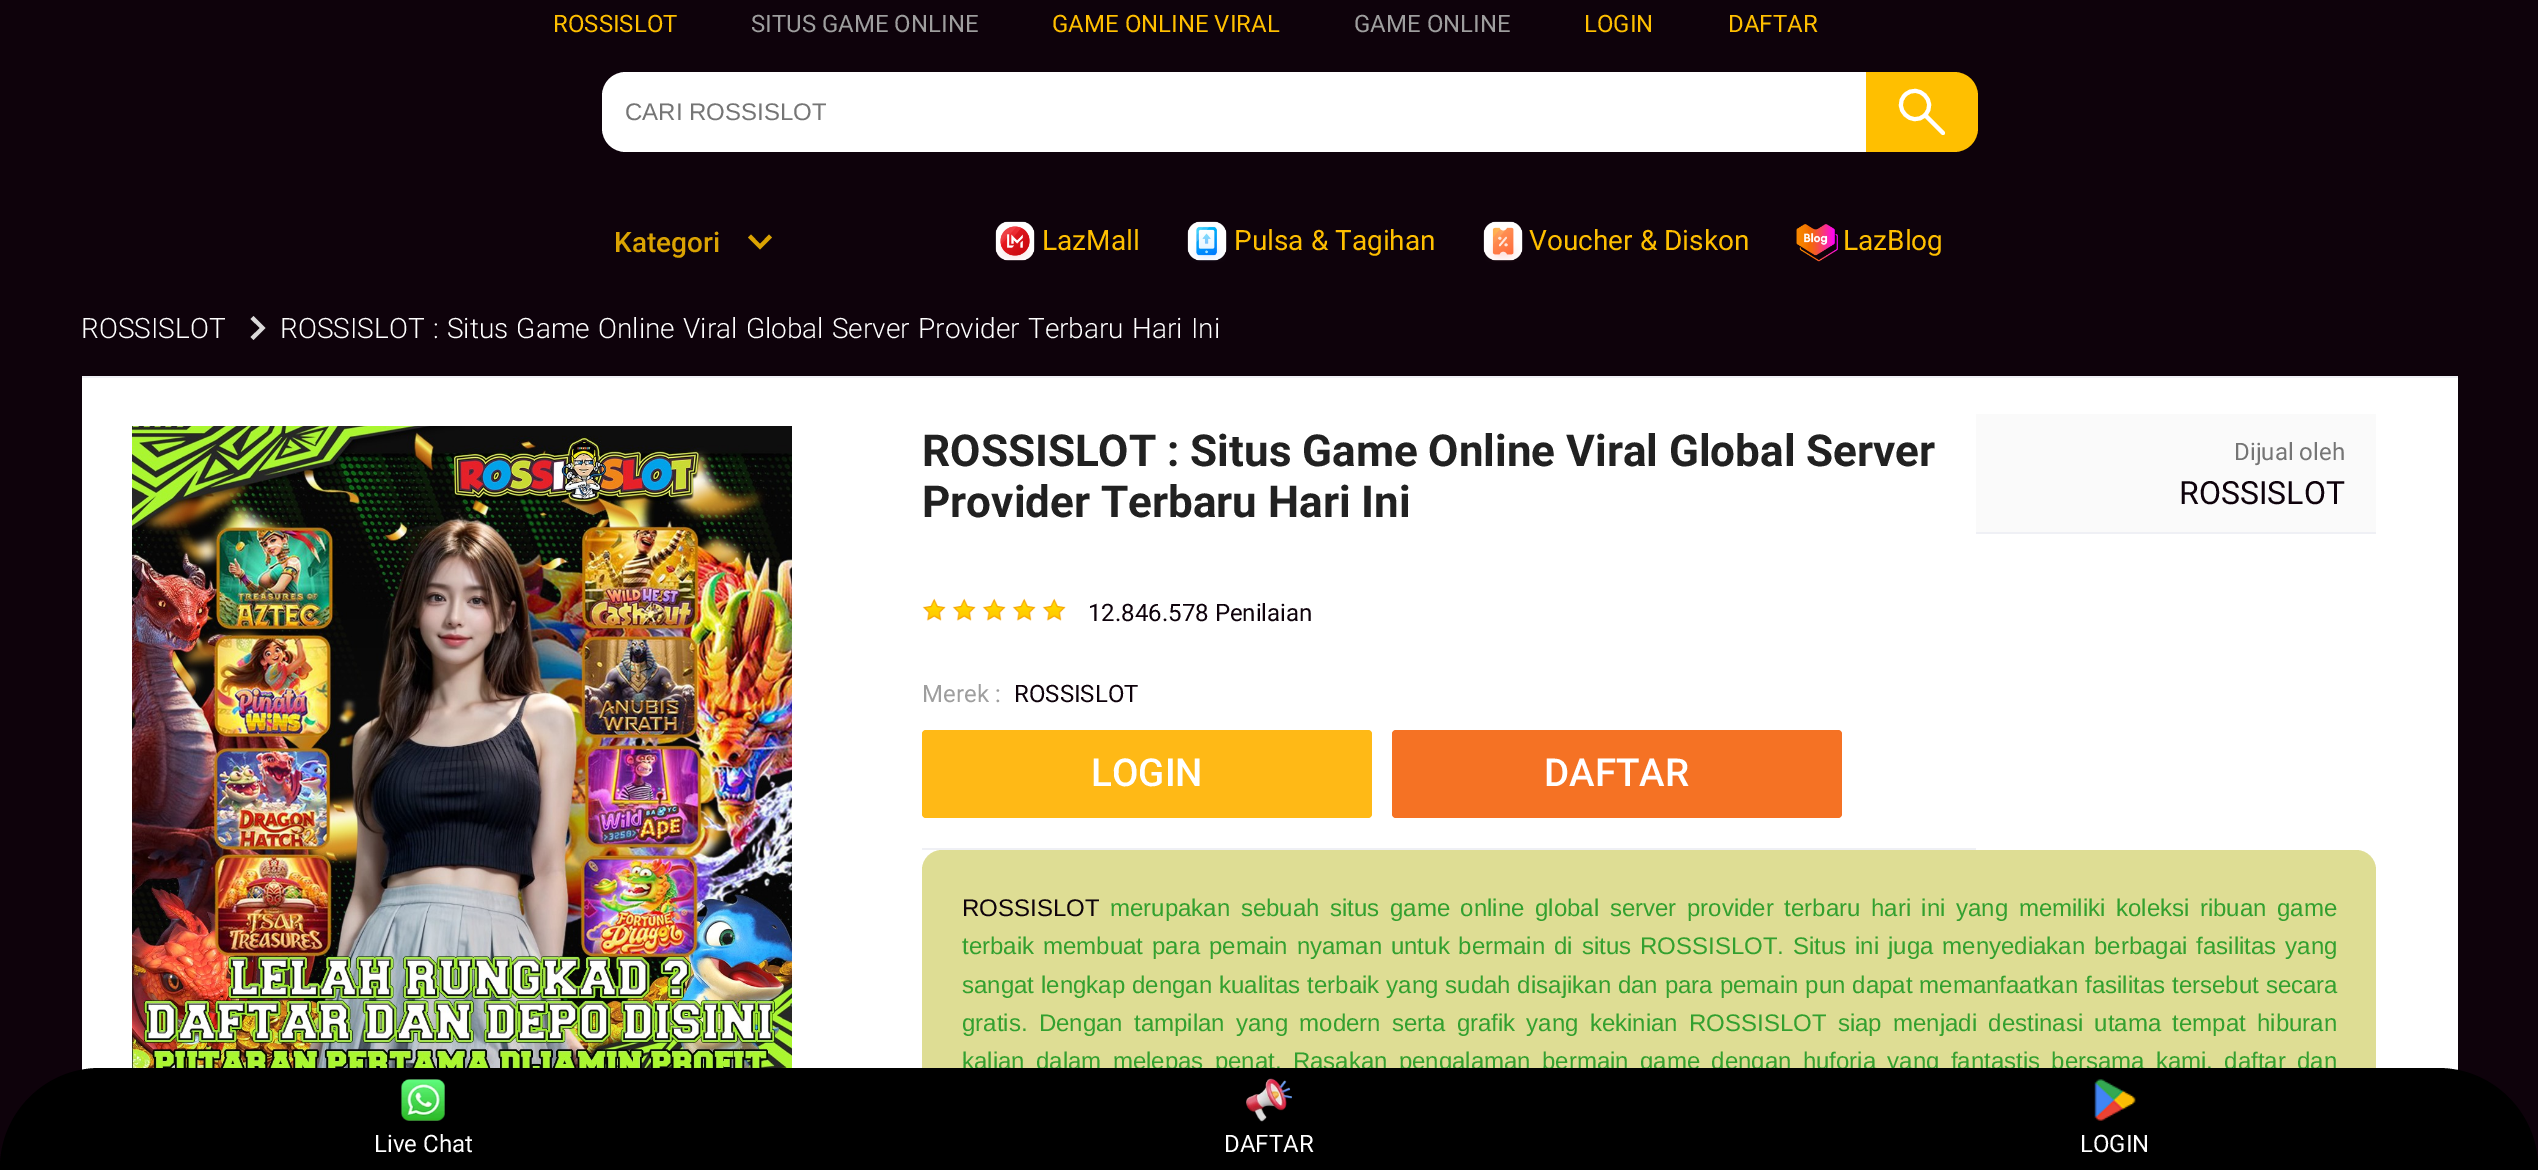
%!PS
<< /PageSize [2538 1170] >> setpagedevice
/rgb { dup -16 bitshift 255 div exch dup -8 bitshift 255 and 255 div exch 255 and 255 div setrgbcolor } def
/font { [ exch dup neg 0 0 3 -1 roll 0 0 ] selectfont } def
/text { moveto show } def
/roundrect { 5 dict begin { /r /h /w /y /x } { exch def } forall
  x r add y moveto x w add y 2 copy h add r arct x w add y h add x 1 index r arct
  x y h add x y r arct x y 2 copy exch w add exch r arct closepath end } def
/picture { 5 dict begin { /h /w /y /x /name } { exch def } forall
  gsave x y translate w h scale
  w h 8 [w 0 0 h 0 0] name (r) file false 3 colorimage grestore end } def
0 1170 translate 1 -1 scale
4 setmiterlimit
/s1 { /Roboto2-Regular 24 font 16#FFBF00 rgb } def
/s2 { /Roboto2-Regular 24 font 16#9E9E9E rgb } def
/s3 { /LiberationSans-Regular 24 font 16#757575 rgb } def
/s4 { /Roboto2-Medium 28 font 16#DBA302 rgb } def
/s5 { /Roboto2-Regular 28 font 16#FFBF00 rgb } def
/s6 { /Roboto-Light 28 font 16#FFFFFF rgb } def
/s7 { /Roboto-Bold 44 font 16#212121 rgb } def
/s8 { /Roboto-Regular 24 font 16#0E020B rgb } def
/s9 { /Roboto-Regular 24 font 16#9E9E9E rgb } def
/s10 { /Roboto-Medium 38.5 font 16#FFFFFF rgb } def
/s11 { /Roboto-Regular 24 font 16#757575 rgb } def
/s12 { /Roboto-Regular 32 font 16#0E020B rgb } def
/s13 { /LiberationSans-Regular 24 font 16#0E020B rgb } def
/s14 { /Roboto-Regular 24 font 16#FFFFFF rgb } def
16#0E020B rgb
0 0 2538 1170 rectfill
s1
(ROSSISLOT) 553 32 text
s2
(SITUS GAME ONLINE) 751 32 text
s1
(GAME ONLINE VIRAL) 1052 32 text
s2
(GAME ONLINE) 1354 32 text
s1
(LOGIN) 1584 32 text
(DAFTAR) 1728 32 text
16#FFFFFF rgb
626 72 moveto 1866 72 lineto 1866 152 lineto 626 152 lineto 612.5 152 602 141.5 602 128 curveto 602 96 lineto 602 82.5 612.5 72 626 72 curveto closepath fill
s3
(CARI ROSSISLOT) 625 120 text
16#FFBF00 rgb
1866 72 moveto 1954 72 lineto 1967.5 72 1978 82.5 1978 96 curveto 1978 128 lineto 1978 141.5 1967.5 152 1954 152 curveto 1866 152 lineto closepath fill
16#FFFFFF rgb
4 setlinewidth
1 setlinecap
1 setlinejoin
1925 115 moveto 1938 102 1918 82 1905 95 curveto 1892 108 1912 128 1925 115 curveto closepath 1925.5 115.5 moveto 1943 133 lineto stroke
s4
(Kategori) 614 252 text
769 234.5 moveto 772 237.5 lineto 760 249.5 lineto 748 237.5 lineto 751 234.5 lineto 760 244 lineto closepath fill
(pic1.raw) 995 221 40 40 picture
s5
(LazMall) 1042 250 text
(pic2.raw) 1187 221 40 41 picture
(Pulsa & Tagihan) 1234 250 text
(pic3.raw) 1483 221 40 41 picture
(Voucher & Diskon) 1529 250 text
(pic4.raw) 1796 224 42 38 picture
(LazBlog) 1843 250 text
16#EFF0F5 rgb
82 376 2376 2 rectfill
s6
(ROSSISLOT) 81 338 text
16#DBD9DA rgb
250.5 319 moveto 253.5 316 lineto 265.5 328 lineto 253.5 340 lineto 250.5 337 lineto 260 328 lineto closepath fill
16#FFFFFF rgb
280 338 moveto 1.4 0 32 (ROSSISLOT : Situs Game Online Viral Global Server Provider Terbaru Hari Ini) widthshow
82 378 2376 692 rectfill
(pic5.raw) 132 426 660 642 picture
s7
(ROSSISLOT : Situs Game Online Viral Global Server) 922 466 text
(Provider Terbaru Hari Ini) 922 517 text
(pic6.raw) 922 598 24 23 picture
(pic6.raw) 952 598 24 23 picture
(pic6.raw) 982 598 24 23 picture
(pic6.raw) 1012 598 24 23 picture
(pic6.raw) 1042 598 24 23 picture
s8
(12.846.578 Penilaian) 1088 621 text
16#EFF0F5 rgb
922 848 1054 2 rectfill
s9
(Merek :) 922 702 text
s8
(ROSSISLOT) 1014 702 text
16#FFB916 rgb
922 730 450 88 4 roundrect fill
s10
(LOGIN) 1091 786 text
16#F57224 rgb
1392 730 450 88 4 roundrect fill
s10
(DAFTAR) 1544 786 text
16#FAFAFA rgb
1976 414 400 118 rectfill
s11
(Dijual oleh) 2234 460 text
s12
(ROSSISLOT) 2179 504 text
16#EFF0F5 rgb
1976 532 400 2 rectfill
16#DEDD94 rgb
922 850 1454 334 20 roundrect fill
s13
(ROSSISLOT) 962 916 text
16#33A02F rgb
1110 916 moveto 3.9 0 32 (merupakan sebuah situs game online global server provider terbaru hari ini yang memiliki koleksi ribuan game) widthshow
962 954 moveto 2.25 0 32 (terbaik membuat para pemain nyaman untuk bermain di situs ROSSISLOT. Situs ini juga menyediakan berbagai fasilitas yang) widthshow
962 993 moveto 0.25 0 32 (sangat lengkap dengan kualitas terbaik yang sudah disajikan dan para pemain pun dapat memanfaatkan fasilitas tersebut secara) widthshow
962 1031 moveto 4.6 0 32 (gratis. Dengan tampilan yang modern serta grafik yang kekinian ROSSISLOT siap menjadi destinasi utama tempat hiburan) widthshow
962 1069 moveto 4.6 0 32 (kalian dalam melepas penat. Rasakan pengalaman bermain game dengan huforia yang fantastis bersama kami, daftar dan) widthshow
16#000000 rgb
100 1068 moveto 2438 1068 lineto 2493 1068 2538 1113 2538 1168 curveto 2538 1170 lineto 0 1170 lineto 0 1168 lineto 0 1113 45 1068 100 1068 curveto closepath fill
(pic7.raw) 401 1079 44 42 picture
s14
(Live Chat) 374 1152 text
(pic8.raw) 1246 1078 46 44 picture
(DAFTAR) 1224 1152 text
(pic9.raw) 2094 1079 42 42 picture
(LOGIN) 2080 1152 text
showpage
